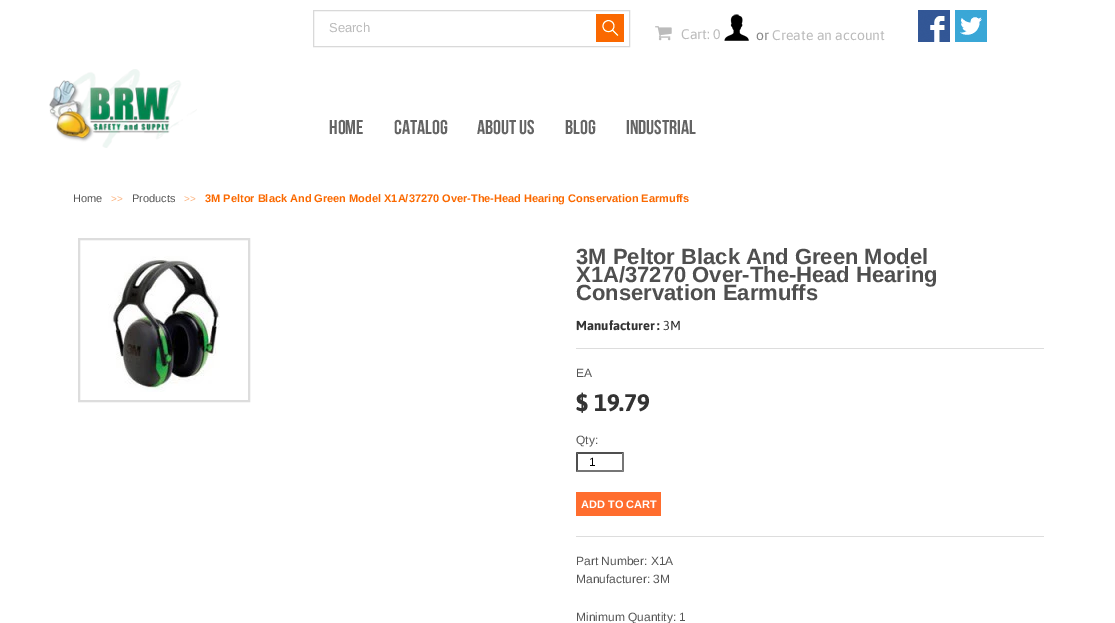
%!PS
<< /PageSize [1115 623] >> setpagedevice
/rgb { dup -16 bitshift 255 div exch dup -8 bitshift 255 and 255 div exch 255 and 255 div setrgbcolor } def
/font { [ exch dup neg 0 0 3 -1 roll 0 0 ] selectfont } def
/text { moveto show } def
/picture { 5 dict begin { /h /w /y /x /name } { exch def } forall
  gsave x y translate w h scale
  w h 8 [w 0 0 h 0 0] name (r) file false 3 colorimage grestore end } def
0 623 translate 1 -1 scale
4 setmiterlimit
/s1 { /LiberationSans-Regular 13 font 16#BBBBBB rgb } def
/s2 { /Asap-Regular 14 font 16#BBBBBB rgb } def
/s3 { /Asap-Regular 14 font 16#888888 rgb } def
/s4 { /BebasNeue-Regular 20 font 16#646464 rgb } def
/s5 { /LiberationSans-Regular 11 font 16#555555 rgb } def
/s6 { /LiberationSans-Regular 10 font 16#FDB480 rgb } def
/s7 { /LiberationSans-Bold 11 font 16#FB6900 rgb } def
/s8 { /LiberationSans-Bold 22 font 16#4F4F4F rgb } def
/s9 { /Asap-Bold 13 font 16#333333 rgb } def
/s10 { /Asap-Regular 13 font 16#333333 rgb } def
/s11 { /LiberationSans-Regular 12 font 16#555555 rgb } def
/s12 { /Asap-Bold 24 font 16#333333 rgb } def
/s13 { /LiberationSans-Regular 12 font 16#000000 rgb } def
/s14 { /LiberationSans-Bold 11 font 16#FFFFFF rgb } def
16#FFFFFF rgb
0 0 1115 623 rectfill
16#D9D9D9 rgb
313.5 10.5 316 36 rectstroke
s1
(Search) 329 32 text
(pic1.raw) 596 14 28 28 picture
(pic2.raw) 918 10 32 32 picture
(pic3.raw) 955 10 32 32 picture
(pic4.raw) 655 26 17 15 picture
s2
(Cart: 0) 681 39 text
(pic5.raw) 724 14 25 27 picture
s3
(or) 756 40 text
s2
(Create an account) 772 40 text
(pic6.raw) 49 69 148 79 picture
s4
(HOME) 329 134 text
(CATALOG) 394 134 text
(ABOUT US) 477 134 text
(BLOG) 565 134 text
(INDUSTRIAL) 626 134 text
s5
(Home) 73 202 text
s6
(>>) 111 202 text
s5
(Products) 132 202 text
s6
(>>) 184 202 text
s7
(3M Peltor Black And Green Model X1A/37270 Over-The-Head Hearing Conservation Earmuffs) 205 202 text
16#DDDDDD rgb
2 setlinewidth
79 239 170 162 rectstroke
(pic7.raw) 108 256 112 136 picture
s8
(3M Peltor Black And Green Model) 576 264 text
(X1A/37270 Over-The-Head Hearing) 576 282 text
(Conservation Earmuffs) 576 300 text
s9
(Manufacturer :) 576 330 text
s10
(3M) 663 330 text
16#DDDDDD rgb
576 348 468 1 rectfill
576 536 468 1 rectfill
s11
(EA) 576 377 text
s12
($ 19.79) 576 411 text
s11
(Qty:) 576 444 text
16#4F4F4F rgb
576 452 moveto 624 452 lineto 622 454 lineto 578 454 lineto closepath fill
16#767676 rgb
624 452 moveto 624 472 lineto 622 470 lineto 622 454 lineto closepath fill
624 472 moveto 576 472 lineto 578 470 lineto 622 470 lineto closepath fill
16#4F4F4F rgb
576 472 moveto 576 452 lineto 578 454 lineto 578 470 lineto closepath fill
s13
(1) 589 466 text
16#FF6D2E rgb
576 492 85 24 rectfill
s14
(ADD TO CART) 581 508 text
s11
(Part Number: X1A) 576 565 text
(Manufacturer: 3M) 576 583 text
(Minimum Quantity: 1) 576 621 text
showpage
